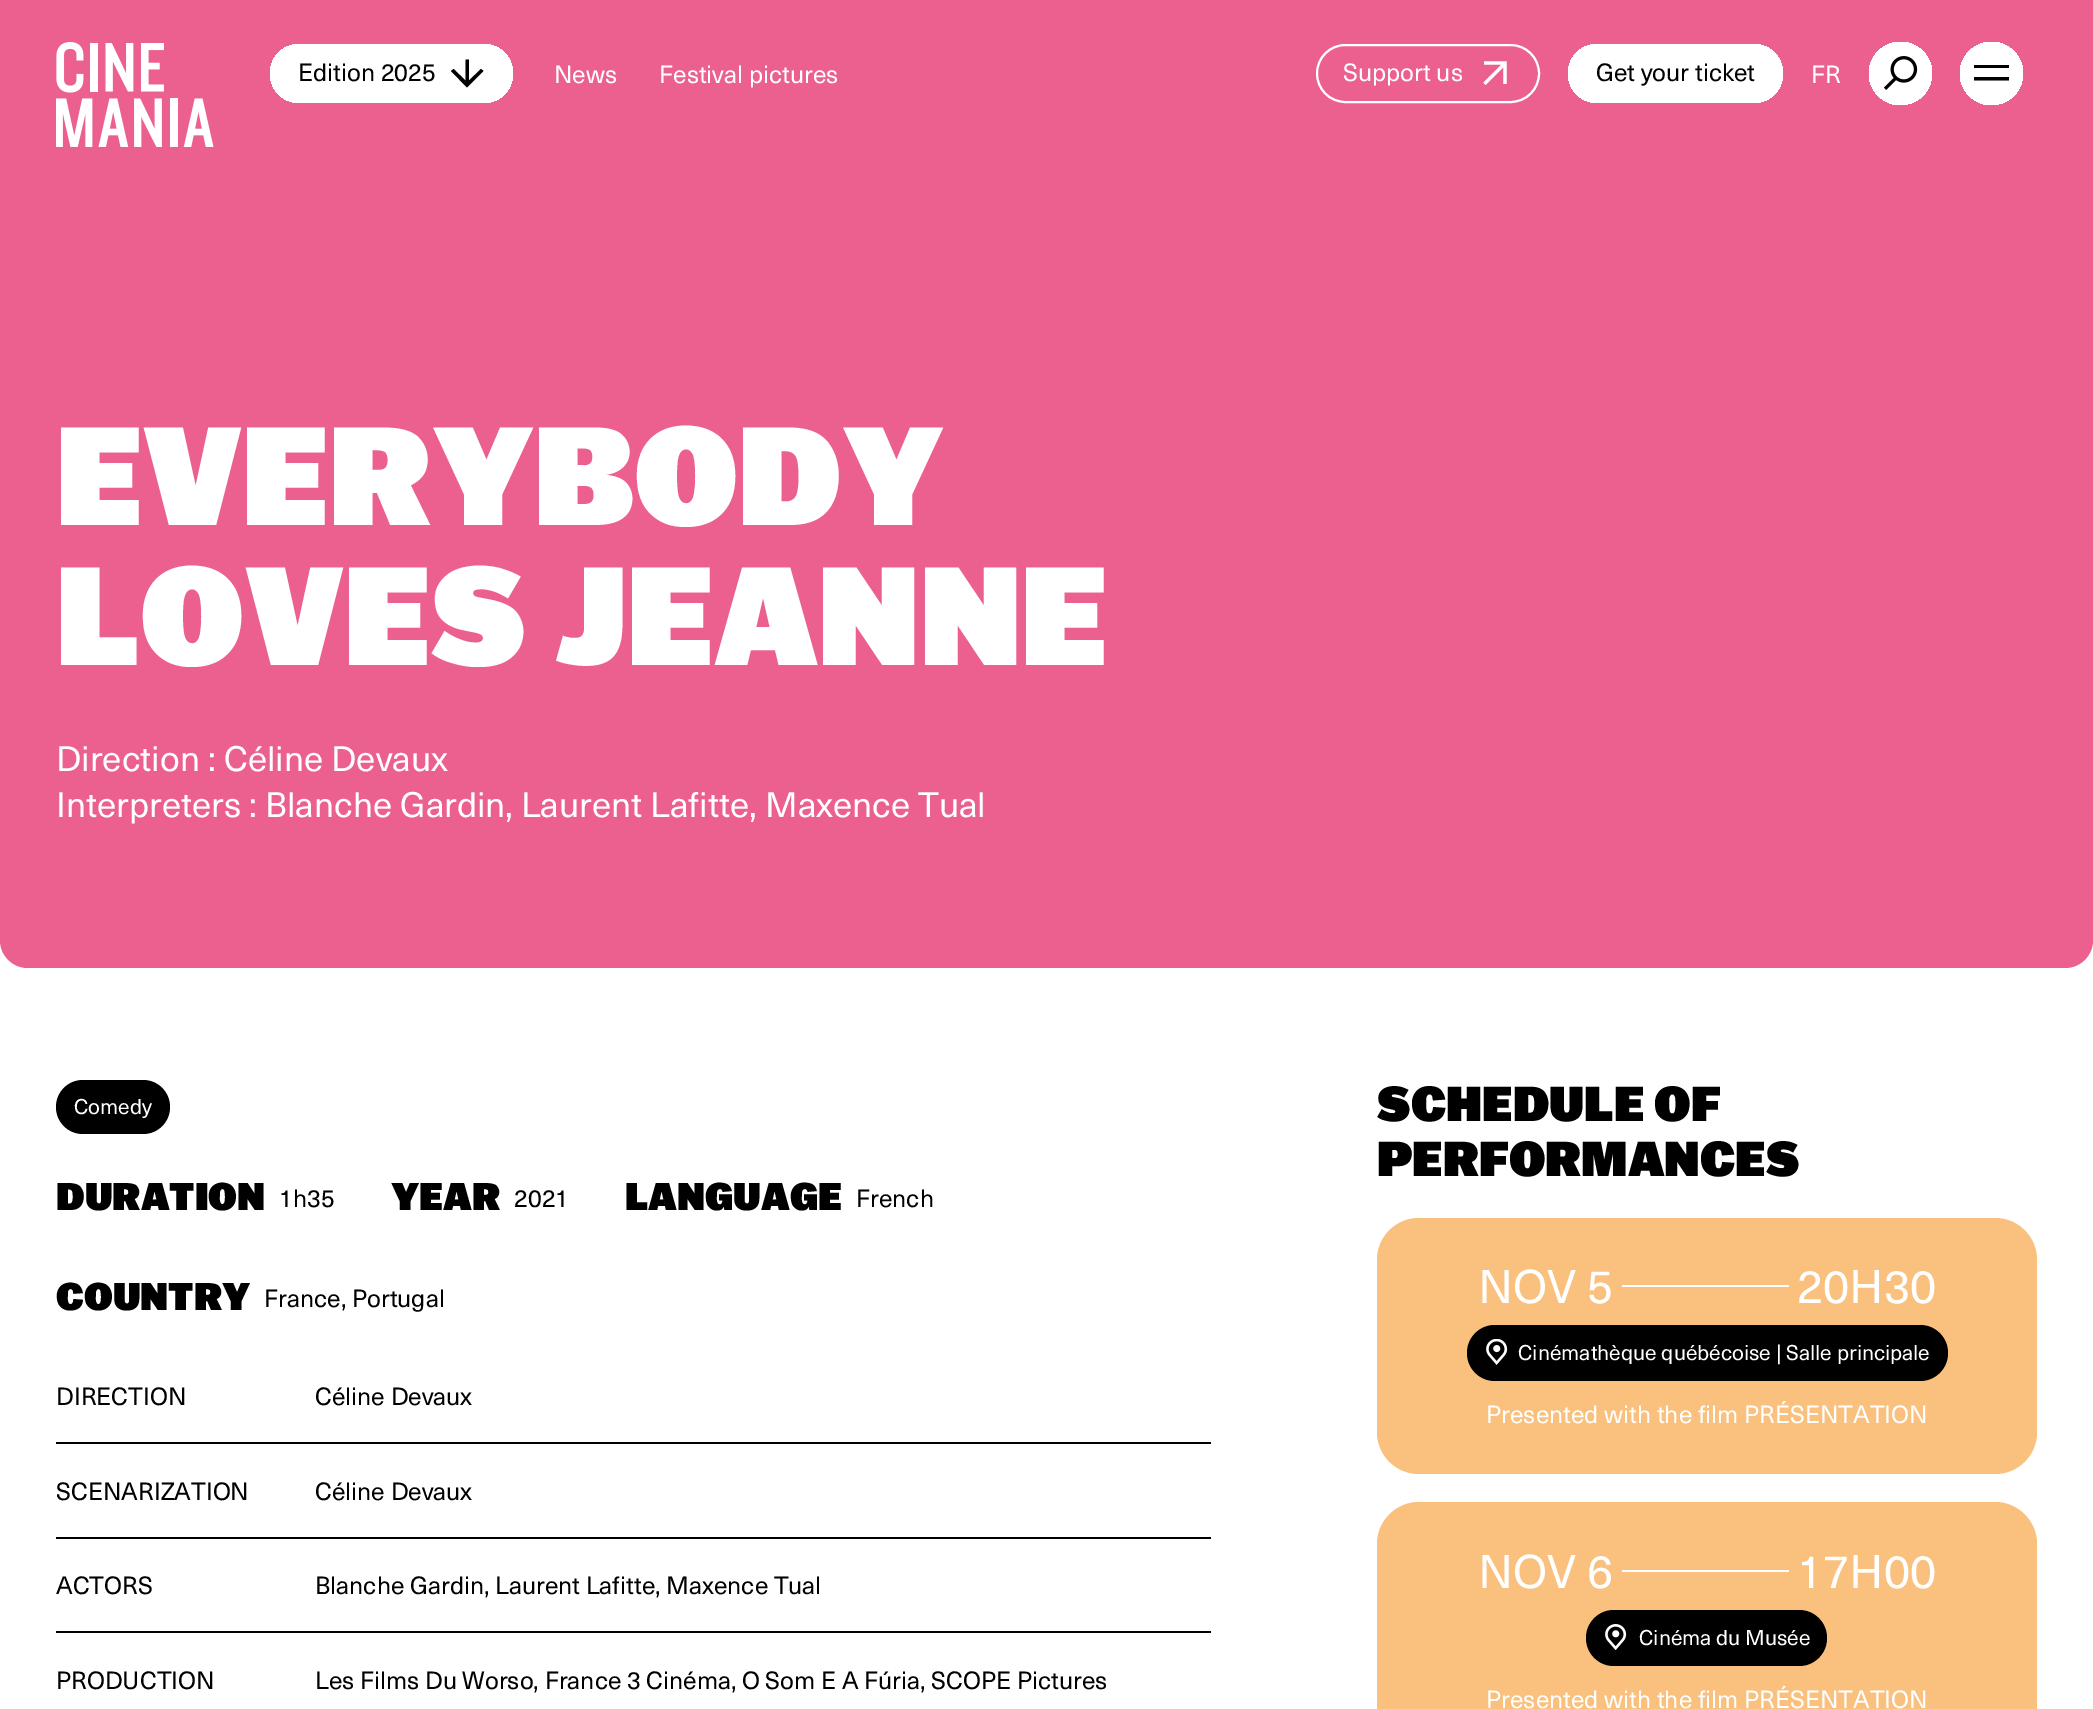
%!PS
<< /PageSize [2093 1709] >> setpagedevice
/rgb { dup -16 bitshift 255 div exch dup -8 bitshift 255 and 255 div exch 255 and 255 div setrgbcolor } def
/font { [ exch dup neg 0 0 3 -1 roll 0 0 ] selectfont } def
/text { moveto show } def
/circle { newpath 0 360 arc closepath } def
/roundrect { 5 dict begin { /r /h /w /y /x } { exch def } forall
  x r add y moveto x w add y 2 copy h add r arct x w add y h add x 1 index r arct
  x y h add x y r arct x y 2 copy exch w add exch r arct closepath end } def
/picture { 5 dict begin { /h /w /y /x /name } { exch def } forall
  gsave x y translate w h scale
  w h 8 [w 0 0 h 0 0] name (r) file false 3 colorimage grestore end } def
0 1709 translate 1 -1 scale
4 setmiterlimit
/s1 { /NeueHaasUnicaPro-Regular 24.5 font 16#000000 rgb } def
/s2 { /NeueHaasUnicaPro-Regular 24.5 font 16#FFFFFF rgb } def
/s3 { /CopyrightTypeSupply-ExtraBold 139.5 font 16#FFFFFF rgb } def
/s4 { /NeueHaasUnicaPro-Regular 34.9 font 16#FFFFFF rgb } def
/s5 { /NeueHaasUnicaPro-Regular 21 font 16#FFFFFF rgb } def
/s6 { /CopyrightTypeSupply-ExtraBold 38.5 font 16#000000 rgb } def
/s7 { /CopyrightTypeSupply-ExtraBold 49 font 16#000000 rgb } def
/s8 { /NeueHaasUnicaPro-Regular 46.5 font 16#FFFFFF rgb } def
16#FFFFFF rgb
0 0 2093 1709 rectfill
16#EC6090 rgb
0 0 moveto 2093 0 lineto 2093 940 lineto 2093 955.5 2080.5 968 2065 968 curveto 28 968 lineto 12.5 968 0 955.5 0 940 curveto closepath fill
(pic1.raw) 56 42 158 105 picture
gsave 270 44 243 59 29.5 roundrect clip newpath 998 74 translate 728 625 scale
<< /ShadingType 3 /ColorSpace /DeviceRGB /Coords [0 0 0 0 0 1] /Extend [true true] /Function << /FunctionType 3 /Domain [0 1] /Functions [<< /FunctionType 2 /Domain [0 1] /C0 [0.694 0.694 0.694] /C1 [0.694 0.694 0.694] /N 1 >> << /FunctionType 2 /Domain [0 1] /C0 [0.694 0.694 0.694] /C1 [0.929 0.929 0.929] /N 1 >> << /FunctionType 2 /Domain [0 1] /C0 [0.929 0.929 0.929] /C1 [1 1 1] /N 1 >> << /FunctionType 2 /Domain [0 1] /C0 [1 1 1] /C1 [1 1 1] /N 1 >>] /Bounds [0.34 0.54 0.67] /Encode [0 1 0 1 0 1 0 1] >> >> shfill grestore
s1
(Edition 2025) 298 81 text
469 80.5 moveto 481 69 lineto 483.5 71 lineto 467 87.5 lineto 451 71 lineto 453.5 69 lineto 465.5 80.5 lineto 465.5 59.5 lineto 469 59.5 lineto closepath eofill
s2
(News) 554 83 text
(Festival pictures) 659 83 text
(pic2.raw) 1483 61 24 25 picture
2 setlinewidth
1317 45 222 57 28.5 roundrect stroke
(Support us) 1343 81 text
gsave 1568 44 215 59 29.5 roundrect clip newpath 2214 74 translate 646 625 scale
<< /ShadingType 3 /ColorSpace /DeviceRGB /Coords [0 0 0 0 0 1] /Extend [true true] /Function << /FunctionType 3 /Domain [0 1] /Functions [<< /FunctionType 2 /Domain [0 1] /C0 [0.694 0.694 0.694] /C1 [0.694 0.694 0.694] /N 1 >> << /FunctionType 2 /Domain [0 1] /C0 [0.694 0.694 0.694] /C1 [0.929 0.929 0.929] /N 1 >> << /FunctionType 2 /Domain [0 1] /C0 [0.929 0.929 0.929] /C1 [1 1 1] /N 1 >> << /FunctionType 2 /Domain [0 1] /C0 [1 1 1] /C1 [1 1 1] /N 1 >>] /Bounds [0.34 0.54 0.67] /Encode [0 1 0 1 0 1 0 1] >> >> shfill grestore
s1
(Get your ticket) 1596 81 text
s2
(FR) 1811 83 text
gsave 1900.5 73.5 31.5 circle clip newpath 2058 74 translate 189 662 scale
<< /ShadingType 3 /ColorSpace /DeviceRGB /Coords [0 0 0 0 0 1] /Extend [true true] /Function << /FunctionType 3 /Domain [0 1] /Functions [<< /FunctionType 2 /Domain [0 1] /C0 [0.694 0.694 0.694] /C1 [0.694 0.694 0.694] /N 1 >> << /FunctionType 2 /Domain [0 1] /C0 [0.694 0.694 0.694] /C1 [0.929 0.929 0.929] /N 1 >> << /FunctionType 2 /Domain [0 1] /C0 [0.929 0.929 0.929] /C1 [1 1 1] /N 1 >> << /FunctionType 2 /Domain [0 1] /C0 [1 1 1] /C1 [1 1 1] /N 1 >>] /Bounds [0.34 0.54 0.67] /Encode [0 1 0 1 0 1 0 1] >> >> shfill grestore
(pic3.raw) 1883 56 35 34 picture
gsave 1991.5 73.5 31.5 circle clip newpath 2149 74 translate 189 662 scale
<< /ShadingType 3 /ColorSpace /DeviceRGB /Coords [0 0 0 0 0 1] /Extend [true true] /Function << /FunctionType 3 /Domain [0 1] /Functions [<< /FunctionType 2 /Domain [0 1] /C0 [0.694 0.694 0.694] /C1 [0.694 0.694 0.694] /N 1 >> << /FunctionType 2 /Domain [0 1] /C0 [0.694 0.694 0.694] /C1 [0.929 0.929 0.929] /N 1 >> << /FunctionType 2 /Domain [0 1] /C0 [0.929 0.929 0.929] /C1 [1 1 1] /N 1 >> << /FunctionType 2 /Domain [0 1] /C0 [1 1 1] /C1 [1 1 1] /N 1 >>] /Bounds [0.34 0.54 0.67] /Encode [0 1 0 1 0 1 0 1] >> >> shfill grestore
16#000000 rgb
1974 68 moveto 2009 68 lineto 2009 65 lineto 1974 65 lineto closepath 1974 80.5 moveto 2009 80.5 lineto 2009 77 lineto 1974 77 lineto closepath eofill
s3
(EVERYBODY) 56 525 text
(LOVES JEANNE) 56 665 text
s4
(Direction : Céline Devaux) 56 771 text
(Interpreters : Blanche Gardin) 56 817 text
(, Laurent Lafitte) 505 817 text
(, Maxence Tual) 749 817 text
16#000000 rgb
56 1080 114 54 27 roundrect fill
s5
(Comedy) 74 1114 text
s6
(DURATION) 56 1210 text
s1
(1h35) 279 1207 text
s6
(YEAR) 391 1210 text
s1
(2021) 514 1207 text
s6
(LANGUAGE) 625 1210 text
s1
(French) 856 1207 text
s6
(COUNTRY) 56 1310 text
s1
(France, Portugal) 264 1307 text
56 1442 1155 2 rectfill
(DIRECTION) 56 1405 text
(Céline Devaux) 315 1405 text
56 1537 1155 2 rectfill
(SCENARIZATION) 56 1500 text
(Céline Devaux) 315 1500 text
56 1631 1155 2 rectfill
(ACTORS) 56 1594 text
(Blanche Gardin, Laurent Lafitte, Maxence Tual) 315 1594 text
(PRODUCTION) 56 1689 text
(Les Films Du Worso, France 3 Cinéma, O Som E A Fúria, SCOPE Pictures) 315 1689 text
s7
(SCHEDULE OF) 1377 1121 text
(PERFORMANCES) 1377 1176 text
16#FAC07E rgb
1377 1218 660 256 42 roundrect fill
s8
(NOV 5) 1478 1303 text
1622 1285 167 2 rectfill
(20H30) 1797 1303 text
16#000000 rgb
1467 1325 481 56 28 roundrect fill
(pic4.raw) 1486 1339 22 26 picture
s5
(Cinémathèque québécoise | Salle principale) 1518 1360 text
s2
(Presented with the film PRÉSENTATION) 1486 1423 text
16#FAC07E rgb
1419 1502 moveto 1995 1502 lineto 2018 1502 2037 1521 2037 1544 curveto 2037 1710 lineto 1377 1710 lineto 1377 1544 lineto 1377 1521 1396 1502 1419 1502 curveto closepath fill
s8
(NOV 6) 1478 1588 text
1622 1570 167 2 rectfill
(17H00) 1797 1588 text
16#000000 rgb
1586 1610 241 56 28 roundrect fill
(pic5.raw) 1605 1624 22 26 picture
s5
(Cinéma du Musée) 1639 1645 text
s2
(Presented with the film PRÉSENTATION) 1486 1708 text
showpage
